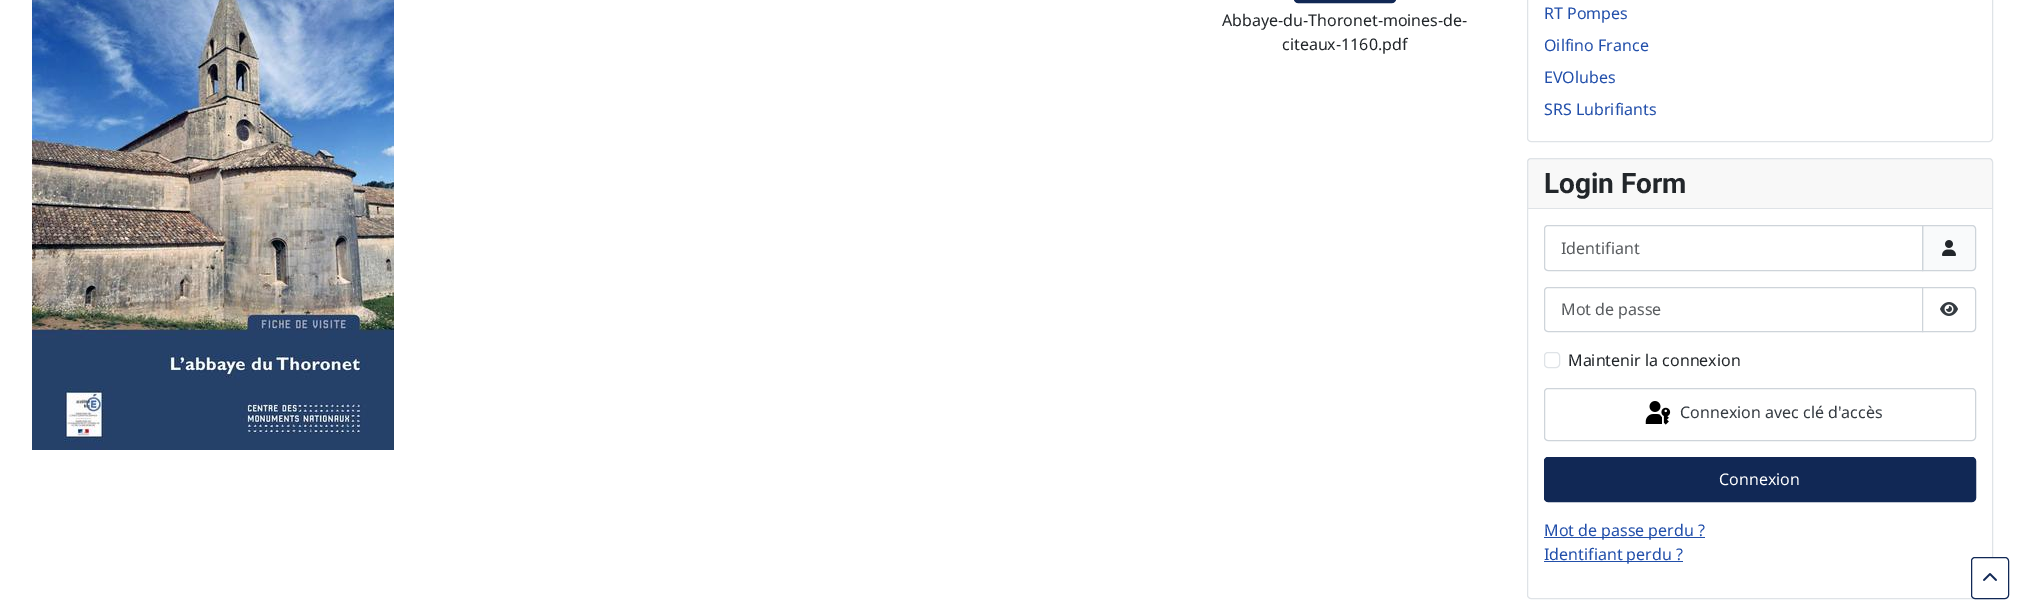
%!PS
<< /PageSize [2025 615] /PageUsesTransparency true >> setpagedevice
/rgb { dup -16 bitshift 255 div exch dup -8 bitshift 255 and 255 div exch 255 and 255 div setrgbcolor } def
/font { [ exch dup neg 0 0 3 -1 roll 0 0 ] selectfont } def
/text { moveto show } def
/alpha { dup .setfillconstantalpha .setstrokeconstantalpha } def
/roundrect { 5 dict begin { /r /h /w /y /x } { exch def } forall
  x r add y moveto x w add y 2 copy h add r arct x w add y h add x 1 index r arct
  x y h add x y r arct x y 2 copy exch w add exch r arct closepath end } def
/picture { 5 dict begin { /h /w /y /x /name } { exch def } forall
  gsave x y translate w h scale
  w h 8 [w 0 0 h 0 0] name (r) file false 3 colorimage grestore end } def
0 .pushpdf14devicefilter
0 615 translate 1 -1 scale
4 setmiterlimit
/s1 { /NotoSans-Regular 16 font 16#22262A rgb } def
/s2 { /NotoSans-Regular 16 font 16#224FAA rgb } def
/s3 { /Roboto-Bold 28 font 16#22262A rgb } def
/s4 { /NotoSans-Regular 16 font 16#595C5F rgb } def
/s5 { /NotoSans-Regular 16 font 16#353B41 rgb } def
/s6 { /NotoSans-Regular 16 font 16#FFFFFF rgb } def
16#FFFFFF rgb
0 0 2025 615 rectfill
(pic1.raw) 32 0 362 450 picture
16#112855 rgb
1294.5 -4.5 101 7 3.5 roundrect gsave fill grestore
stroke
s1
(Abbaye-du-Thoronet-moines-de-) 1222 26 text
(citeaux-1160.pdf) 1282 50 text
16#DFE3E7 rgb
1527.5 -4.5 465 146 3.5 roundrect stroke
s2
(RT Pompes) 1544 19 text
(Oilfino France) 1544 51 text
(EVOlubes) 1544 83 text
(SRS Lubrifiants) 1544 115 text
16#DFE3E7 rgb
1527.5 158.5 465 440 3.5 roundrect stroke
0.03 alpha
16#22262A rgb
1528 159 464 49 rectfill
1 alpha
16#DFE3E7 rgb
1528 208 464 1 rectfill
s3
(Login Form) 1544 193 text
16#F9FAFB rgb
1922.5 225.5 moveto 1972 225.5 lineto 1974 225.5 1975.5 227 1975.5 229 curveto 1975.5 267 lineto 1975.5 269 1974 270.5 1972 270.5 curveto 1922.5 270.5 lineto closepath gsave fill grestore
16#CED4DA rgb
stroke
1548 225.5 moveto 1922.5 225.5 lineto 1922.5 270.5 lineto 1548 270.5 lineto 1546 270.5 1544.5 269 1544.5 267 curveto 1544.5 229 lineto 1544.5 227 1546 225.5 1548 225.5 curveto closepath stroke
s4
(Identifiant) 1561 254 text
(pic2.raw) 1942 240 14 16 picture
16#CED4DA rgb
1548 287.5 moveto 1922.5 287.5 lineto 1922.5 331.5 lineto 1548 331.5 lineto 1546 331.5 1544.5 330 1544.5 328 curveto 1544.5 291 lineto 1544.5 289 1546 287.5 1548 287.5 curveto closepath stroke
s4
(Mot de passe) 1561 315 text
16#FFFFFF rgb
1922.5 287.5 moveto 1972 287.5 lineto 1974 287.5 1975.5 289 1975.5 291 curveto 1975.5 328 lineto 1975.5 330 1974 331.5 1972 331.5 curveto 1922.5 331.5 lineto closepath gsave fill grestore
16#CED4DA rgb
stroke
(pic3.raw) 1940 302 18 14 picture
16#DFE3E7 rgb
1544.5 352.5 15 15 3.5 roundrect stroke
s1
(Maintenir la connexion) 1568 366 text
16#CED4DA rgb
1544.5 388.5 431 52 3.5 roundrect stroke
(pic4.raw) 1645 401 26 24 picture
s5
(Connexion avec clé d'accès) 1680 418 text
16#112855 rgb
1544.5 457.5 431 44 3.5 roundrect gsave fill grestore
stroke
s6
(Connexion) 1719 485 text
16#224FAA rgb
1544 537 161 1 rectfill
(Mot de passe perdu ?) 1544 536 text
1544 561 139 1 rectfill
(Identifiant perdu ?) 1544 560 text
16#FFFFFF rgb
1971.5 557.5 37 41 3.5 roundrect gsave fill grestore
16#112855 rgb
stroke
(pic5.raw) 1983 573 14 8 picture
.poppdf14devicefilter showpage
